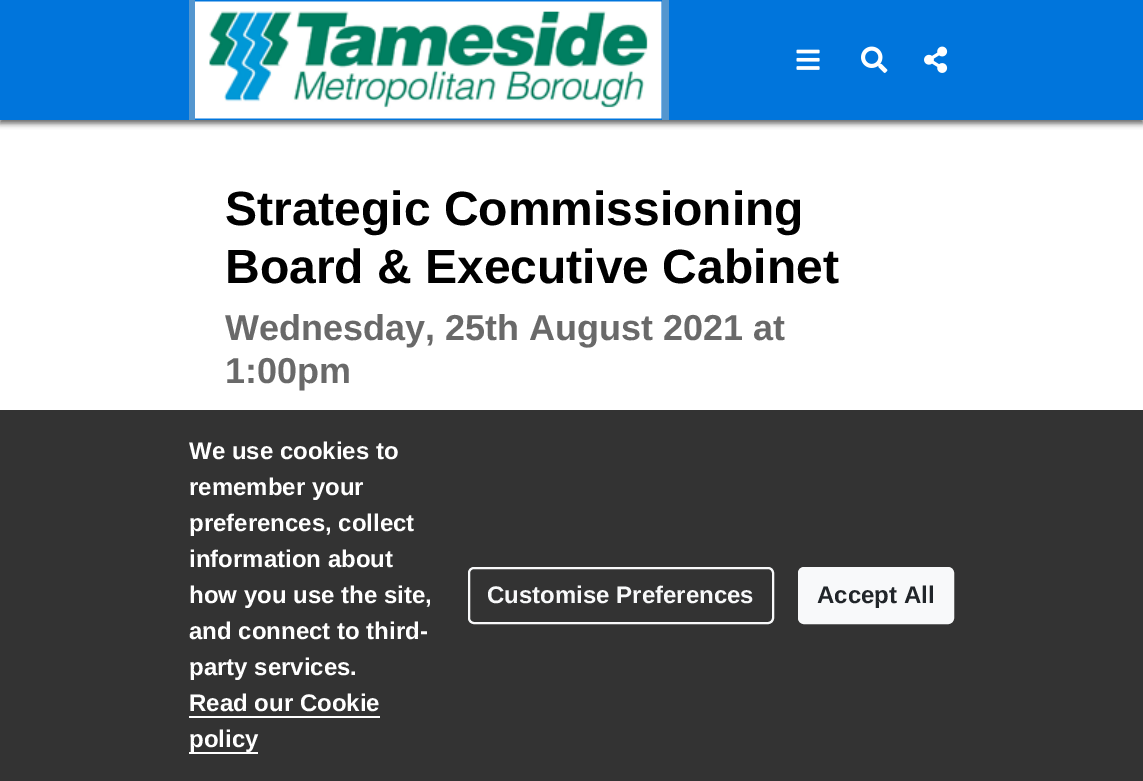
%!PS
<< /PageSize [1143 781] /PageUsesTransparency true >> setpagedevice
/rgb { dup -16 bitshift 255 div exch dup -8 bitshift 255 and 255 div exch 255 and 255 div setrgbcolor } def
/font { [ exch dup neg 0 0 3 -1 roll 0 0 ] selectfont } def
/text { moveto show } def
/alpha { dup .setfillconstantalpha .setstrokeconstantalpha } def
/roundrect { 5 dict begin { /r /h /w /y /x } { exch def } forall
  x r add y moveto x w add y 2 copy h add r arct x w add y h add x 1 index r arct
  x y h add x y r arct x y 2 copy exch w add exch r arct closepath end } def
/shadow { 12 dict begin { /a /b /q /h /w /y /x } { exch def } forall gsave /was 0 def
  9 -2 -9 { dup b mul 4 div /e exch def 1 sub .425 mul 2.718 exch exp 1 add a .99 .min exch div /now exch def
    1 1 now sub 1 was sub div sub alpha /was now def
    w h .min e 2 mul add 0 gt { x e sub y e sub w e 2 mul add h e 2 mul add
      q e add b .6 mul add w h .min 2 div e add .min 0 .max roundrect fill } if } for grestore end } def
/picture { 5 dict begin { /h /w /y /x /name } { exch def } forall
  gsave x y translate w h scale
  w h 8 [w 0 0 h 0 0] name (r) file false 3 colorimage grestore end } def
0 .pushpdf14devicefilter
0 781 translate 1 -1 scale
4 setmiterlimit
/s1 { /LiberationSans-Bold 48 font 16#000000 rgb } def
/s2 { /LiberationSans-Bold 36 font 16#696969 rgb } def
/s3 { /LiberationSans-Bold 24 font 16#FFFFFF rgb } def
/s4 { /LiberationSans-Bold 24 font 16#F8F9FA rgb } def
/s5 { /LiberationSans-Bold 24 font 16#212529 rgb } def
16#FFFFFF rgb
0 0 1143 781 rectfill
16#333333 rgb
0 3 1143 120 0 3 0.5 shadow
0 3 1143 120 0 3 0.5 shadow
16#0075DC rgb
0 0 1143 120 rectfill
16#5496CF rgb
189 0 6 120 rectfill
(pic1.raw) 195 1 467 118 picture
662 0 7 120 rectfill
(pic2.raw) 796 49 24 21 picture
(pic3.raw) 861 46 27 27 picture
(pic4.raw) 924 46 24 27 picture
s1
(Strategic Commissioning) 225 225 text
(Board & Executive Cabinet) 225 283 text
s2
(Wednesday, 25th August 2021 at) 225 340 text
(1:00pm) 225 383 text
16#333333 rgb
0 410 1143 371 rectfill
s3
(We use cookies to) 189 459 text
(remember your) 189 495 text
(preferences, collect) 189 531 text
(information about) 189 567 text
(how you use the site,) 189 603 text
(and connect to third-) 189 639 text
(party services.) 189 675 text
(Read our Cookie) 189 711 text
189 716 191 2 rectfill
(policy) 189 747 text
189 752 69 2 rectfill
16#F8F9FA rgb
2 setlinewidth
469 568 304 55 5 roundrect stroke
(Customise Preferences) 487 603 text
799 568 154 55 5 roundrect gsave fill grestore
stroke
s5
(Accept All) 817 603 text
.poppdf14devicefilter showpage
